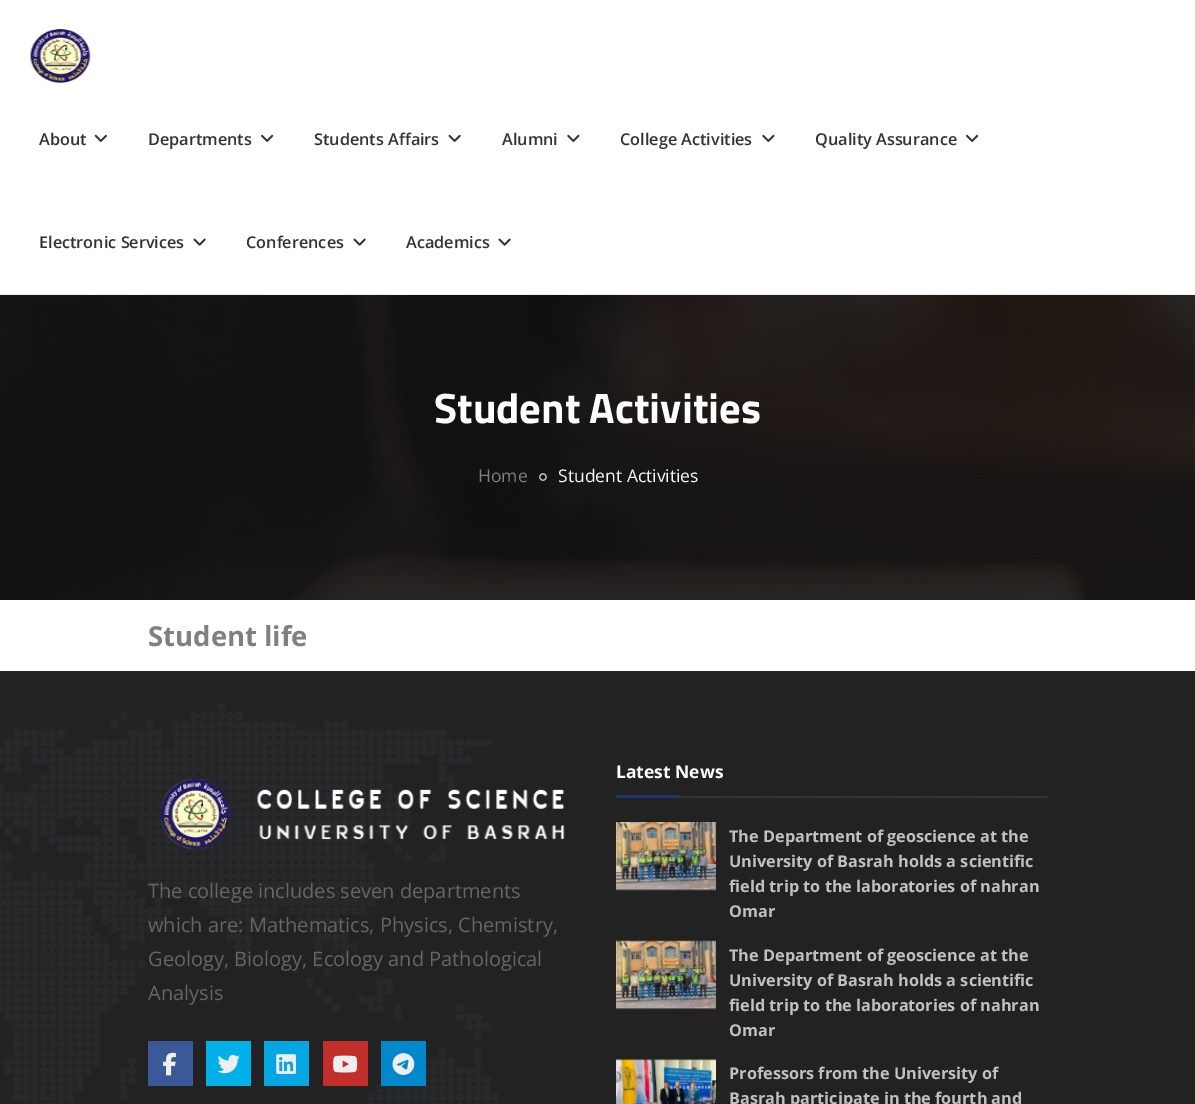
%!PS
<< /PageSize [1195 1104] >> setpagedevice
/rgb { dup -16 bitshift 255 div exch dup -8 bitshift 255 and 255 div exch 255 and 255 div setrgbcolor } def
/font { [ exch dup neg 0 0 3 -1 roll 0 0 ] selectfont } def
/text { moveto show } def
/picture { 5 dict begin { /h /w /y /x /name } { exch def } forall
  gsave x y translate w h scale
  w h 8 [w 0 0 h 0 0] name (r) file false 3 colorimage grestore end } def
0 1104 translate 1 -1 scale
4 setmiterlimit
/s1 { /OpenSans-SemiBold 16.25 font 16#333333 rgb } def
/s2 { /TitilliumWeb-Bold 42.5 font 16#FFFFFF rgb } def
/s3 { /OpenSans-Regular 17.5 font 16#808080 rgb } def
/s4 { /OpenSans-Regular 17.5 font 16#FFFFFF rgb } def
/s5 { /OpenSans-Bold 27.5 font 16#808080 rgb } def
/s6 { /OpenSans-Regular 20 font 16#666666 rgb } def
/s7 { /OpenSans-Bold 17.5 font 16#FFFFFF rgb } def
/s8 { /OpenSans-Bold 16.25 font 16#C0C0C0 rgb } def
16#FFFFFF rgb
0 0 1195 1104 rectfill
16#EEEEEE rgb
0 294 1195 1 rectfill
(pic1.raw) 30 29 61 54 picture
s1
(About) 39 145 text
(pic2.raw) 94 134 13 8 picture
(Departments) 148 145 text
(pic3.raw) 261 134 13 8 picture
(Students Affairs) 314 145 text
(pic4.raw) 448 134 13 8 picture
(Alumni) 502 145 text
(pic5.raw) 567 134 13 8 picture
(College Activities) 620 145 text
(pic5.raw) 762 134 13 8 picture
(Quality Assurance) 815 145 text
(pic3.raw) 966 134 13 8 picture
(Electronic Services) 39 248 text
(pic6.raw) 193 238 13 8 picture
(Conferences) 246 248 text
(pic6.raw) 353 238 13 8 picture
(Academics) 406 248 text
(pic6.raw) 498 238 13 8 picture
(pic7.raw) 0 295 1195 305 picture
s2
(Student Activities) 434 423 text
s3
(Home) 478 482 text
(pic8.raw) 539 473 8 8 picture
s4
(Student Activities) 558 482 text
s5
(Student life) 148 646 text
16#222222 rgb
0 671 1195 433 rectfill
(pic9.raw) 0 703 500 401 picture
(pic10.raw) 161 779 404 70 picture
s6
(The college includes seven departments) 148 898 text
(which are: Mathematics, Physics, Chemistry,) 148 932 text
(Geology, Biology, Ecology and Pathological) 148 966 text
(Analysis) 148 1000 text
16#3B5998 rgb
148 1041 45 45 rectfill
(pic11.raw) 163 1052 13 24 picture
16#02B0E8 rgb
206 1041 45 45 rectfill
(pic12.raw) 217 1054 23 20 picture
16#05A7E3 rgb
264 1041 45 45 rectfill
(pic13.raw) 276 1054 20 20 picture
16#C22E2A rgb
323 1041 45 45 rectfill
(pic14.raw) 333 1055 25 18 picture
16#0088CC rgb
381 1041 45 45 rectfill
(pic15.raw) 392 1053 23 22 picture
16#555555 rgb
1.2 setlinewidth
[1.25 1.25] 0 setdash
616 797 moveto 1047.5 797 lineto stroke
s7
(Latest News) 616 778 text
16#1F386B rgb
616 795 63 3 rectfill
(pic16.raw) 616 822 100 69 picture
s8
(The Department of geoscience at the) 729 842 text
(University of Basrah holds a scientific) 729 867 text
(field trip to the laboratories of nahran) 729 892 text
(Omar) 729 917 text
(pic17.raw) 616 940 100 70 picture
(The Department of geoscience at the) 729 961 text
(University of Basrah holds a scientific) 729 986 text
(field trip to the laboratories of nahran) 729 1011 text
(Omar) 729 1036 text
(pic18.raw) 616 1059 100 45 picture
(Professors from the University of) 729 1079 text
(Basrah participate in the fourth and) 729 1104 text
showpage
